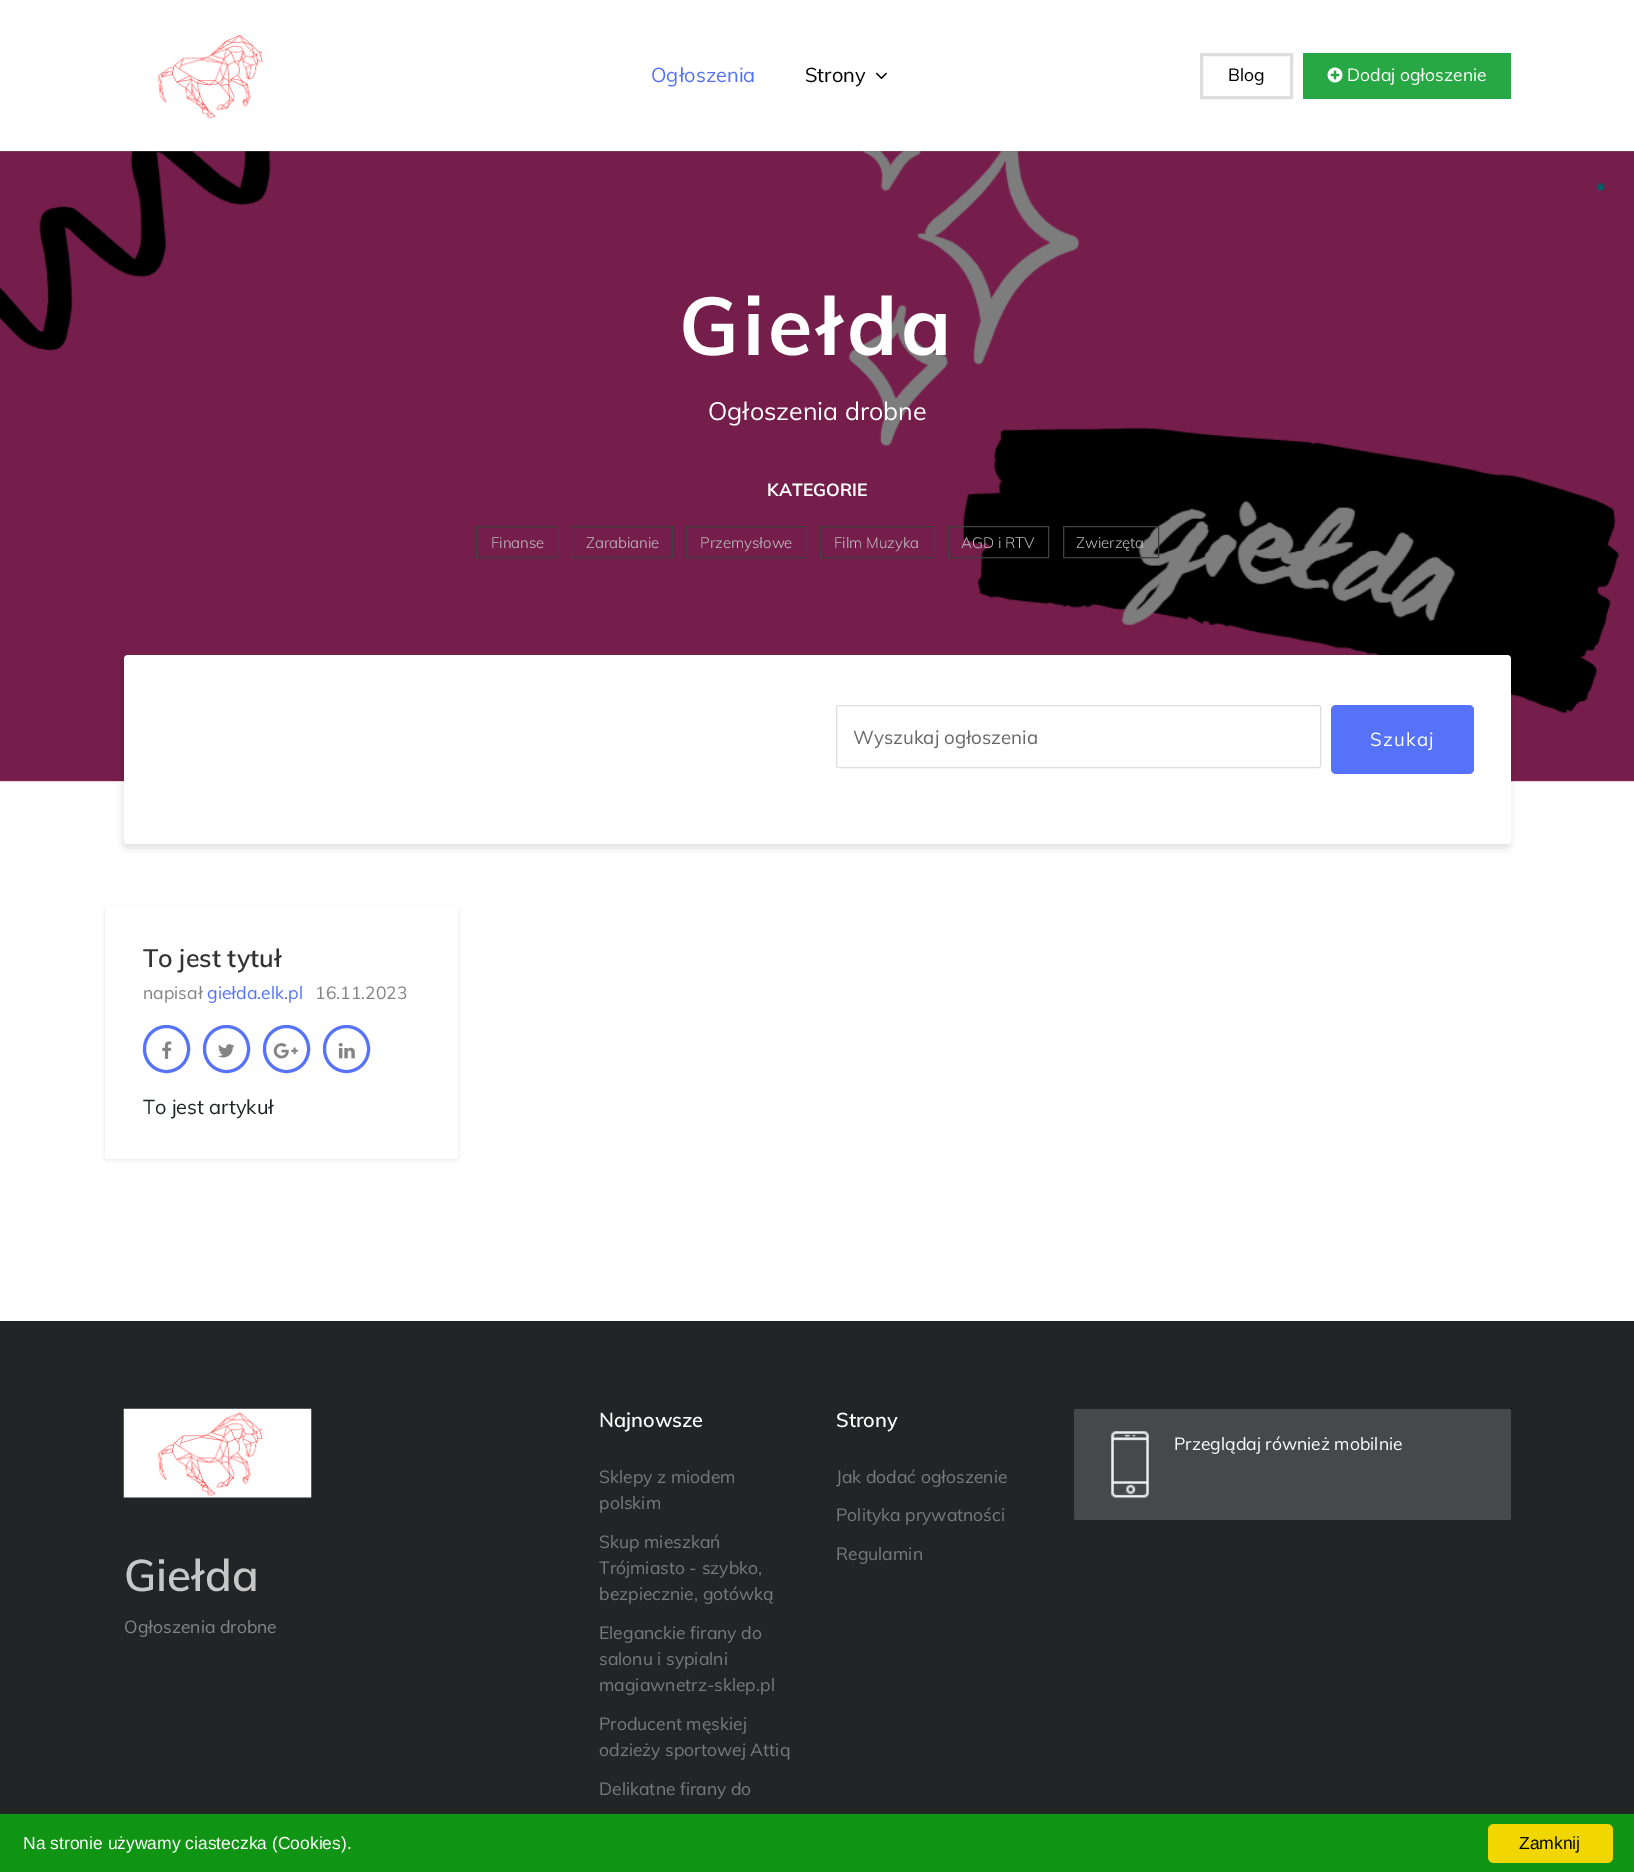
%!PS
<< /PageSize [1634 1872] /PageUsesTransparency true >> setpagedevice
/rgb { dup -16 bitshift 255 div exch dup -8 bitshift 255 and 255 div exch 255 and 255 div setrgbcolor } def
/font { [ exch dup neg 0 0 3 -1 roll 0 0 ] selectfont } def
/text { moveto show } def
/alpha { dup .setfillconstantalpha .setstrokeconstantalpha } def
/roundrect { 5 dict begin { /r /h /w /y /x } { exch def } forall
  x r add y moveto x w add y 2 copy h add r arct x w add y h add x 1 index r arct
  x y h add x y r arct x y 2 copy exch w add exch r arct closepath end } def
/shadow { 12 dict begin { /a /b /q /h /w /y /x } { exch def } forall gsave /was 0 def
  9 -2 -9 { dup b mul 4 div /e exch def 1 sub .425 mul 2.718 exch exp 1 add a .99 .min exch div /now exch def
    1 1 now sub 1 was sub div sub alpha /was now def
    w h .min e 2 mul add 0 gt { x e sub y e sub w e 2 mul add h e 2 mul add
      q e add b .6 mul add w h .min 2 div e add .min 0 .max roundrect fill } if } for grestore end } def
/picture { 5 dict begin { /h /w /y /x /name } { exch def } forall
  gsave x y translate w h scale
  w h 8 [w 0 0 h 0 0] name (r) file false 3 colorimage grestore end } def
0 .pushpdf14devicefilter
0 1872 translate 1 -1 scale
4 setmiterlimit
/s1 { /Muli-Regular 20 font 16#5672F9 rgb } def
/s2 { /Muli-Regular 20 font 16#000000 rgb } def
/s3 { /Muli-Regular 17.5 font 16#000000 rgb } def
/s4 { /Muli-Regular 17.5 font 16#FFFFFF rgb } def
/s5 { /Muli-Regular 25 font 16#FFFFFF rgb } def
/s6 { /Muli-Bold 17.5 font 16#FFFFFF rgb } def
/s7 { /Muli-Light 15 font 16#C1C1C1 rgb } def
/s8 { /Muli-Regular 18.75 font 16#666666 rgb } def
/s9 { /Muli-SemiBold 25 font 16#333333 rgb } def
/s10 { /Muli-Regular 17.5 font 16#848484 rgb } def
/s11 { /Muli-Regular 17.5 font 16#5672F9 rgb } def
/s12 { /Muli-Regular 20 font 16#212529 rgb } def
/s13 { /Muli-SemiBold 20 font 16#FFFFFF rgb } def
/s14 { /Muli-Regular 17.5 font 16#797979 rgb } def
/s15 { /Muli-SemiBold 44 font 16#C7C7C7 rgb } def
/s16 { /LiberationSans-Regular 17.5 font 16#FFFFFF rgb } def
/s17 { /LiberationSans-Regular 17.5 font 16#000000 rgb } def
16#FFFFFF rgb
0 0 1634 1872 rectfill
(pic1.raw) 158 35 105 84 picture
s1
(Ogłoszenia) 651 82 text
s2
(Strony) 805 82 text
(pic2.raw) 875 72 12 8 picture
16#DEDEDE rgb
3 setlinewidth
1201.5 54.5 90 43 rectstroke
s3
(Blog) 1228 81 text
16#28A745 rgb
1303 53 208 46 rectfill
(pic3.raw) 1327 67 16 16 picture
s4
(Dodaj ogłoszenie) 1347 81 text
(pic4.raw) 0 151 1634 631 picture
/Muli-Bold 81 font
679 355 moveto 4 0 (Giełda) ashow
s5
(Ogłoszenia drobne) 708 420 text
s6
(KATEGORIE) 767 496 text
16#404040 rgb
1 setlinewidth
476.5 526.5 81 31 rectstroke
s7
(Finanse) 491 548 text
16#404040 rgb
571.5 526.5 101 31 rectstroke
s7
(Zarabianie) 586 548 text
16#404040 rgb
686.5 526.5 119 31 rectstroke
s7
(Przemysłowe) 700 548 text
16#404040 rgb
820.5 526.5 113 31 rectstroke
s7
(Film Muzyka) 834 548 text
16#404040 rgb
948.5 526.5 100 31 rectstroke
s7
(AGD i RTV) 961 548 text
16#404040 rgb
1063.5 526.5 95 31 rectstroke
s7
(Zwierzęta) 1076 548 text
16#000000 rgb
123 659 1387 189 4 4 0.12 shadow
16#FFFFFF rgb
124 655 1387 189 4 roundrect fill
16#DEDEDE rgb
836.5 705.5 484 62 2 roundrect stroke
s8
(Wyszukaj ogłoszenia) 853 744 text
16#5672F9 rgb
1331 705 143 69 5 roundrect fill
16#FFFFFF rgb
1370 746 moveto 1.25 0 (Szukaj) ashow
16#000000 rgb
105 908 353 252 2.5 2 0.1 shadow
16#FFFFFF rgb
105 906 353 253 2.5 roundrect fill
s9
(To jest tytuł) 143 967 text
s10
(napisał) 143 999 text
s11
(giełda.elk.pl) 207 999 text
s10
(16.11.2023) 315 999 text
16#5672F9 rgb
3 setlinewidth
144.5 1026.5 44 45 22 roundrect stroke
(pic5.raw) 162 1041 10 18 picture
204.5 1026.5 44 45 22 roundrect stroke
(pic6.raw) 218 1044 17 14 picture
264.5 1026.5 44 45 22 roundrect stroke
(pic7.raw) 273 1043 25 16 picture
324.5 1026.5 44 45 22 roundrect stroke
(pic8.raw) 338 1043 17 16 picture
s12
(To jest artykuł) 143 1114 text
16#232425 rgb
0 1321 1634 493 rectfill
s13
(Najnowsze) 599 1427 text
s14
(Sklepy z miodem) 599 1483 text
(polskim) 599 1509 text
(Skup mieszkań) 599 1548 text
(Trójmiasto - szybko,) 599 1574 text
(bezpiecznie, gotówką) 599 1600 text
(Eleganckie firany do) 599 1639 text
(salonu i sypialni) 599 1665 text
(magiawnetrz-sklep.pl) 599 1691 text
(Producent męskiej) 599 1730 text
(odzieży sportowej Attiq) 599 1756 text
(Delikatne firany do) 599 1795 text
s13
(Strony) 836 1427 text
s14
(Jak dodać ogłoszenie) 836 1483 text
(Polityka prywatności) 836 1521 text
(Regulamin) 836 1560 text
16#46484A rgb
1074 1409 437 111 2.5 roundrect fill
(pic9.raw) 1111 1431 38 67 picture
s4
(Przeglądaj również mobilnie) 1174 1450 text
(pic10.raw) 123 1408 189 90 picture
s15
(Giełda) 124 1591 text
s10
(Ogłoszenia drobne) 124 1633 text
16#109413 rgb
0 1814 1634 58 rectfill
s16
(Na stronie używamy ciasteczka \(Cookies\).) 23 1849 text
16#F1D600 rgb
1488 1824 125 39 6 roundrect fill
s17
(Zamknij) 1519 1849 text
.poppdf14devicefilter showpage
